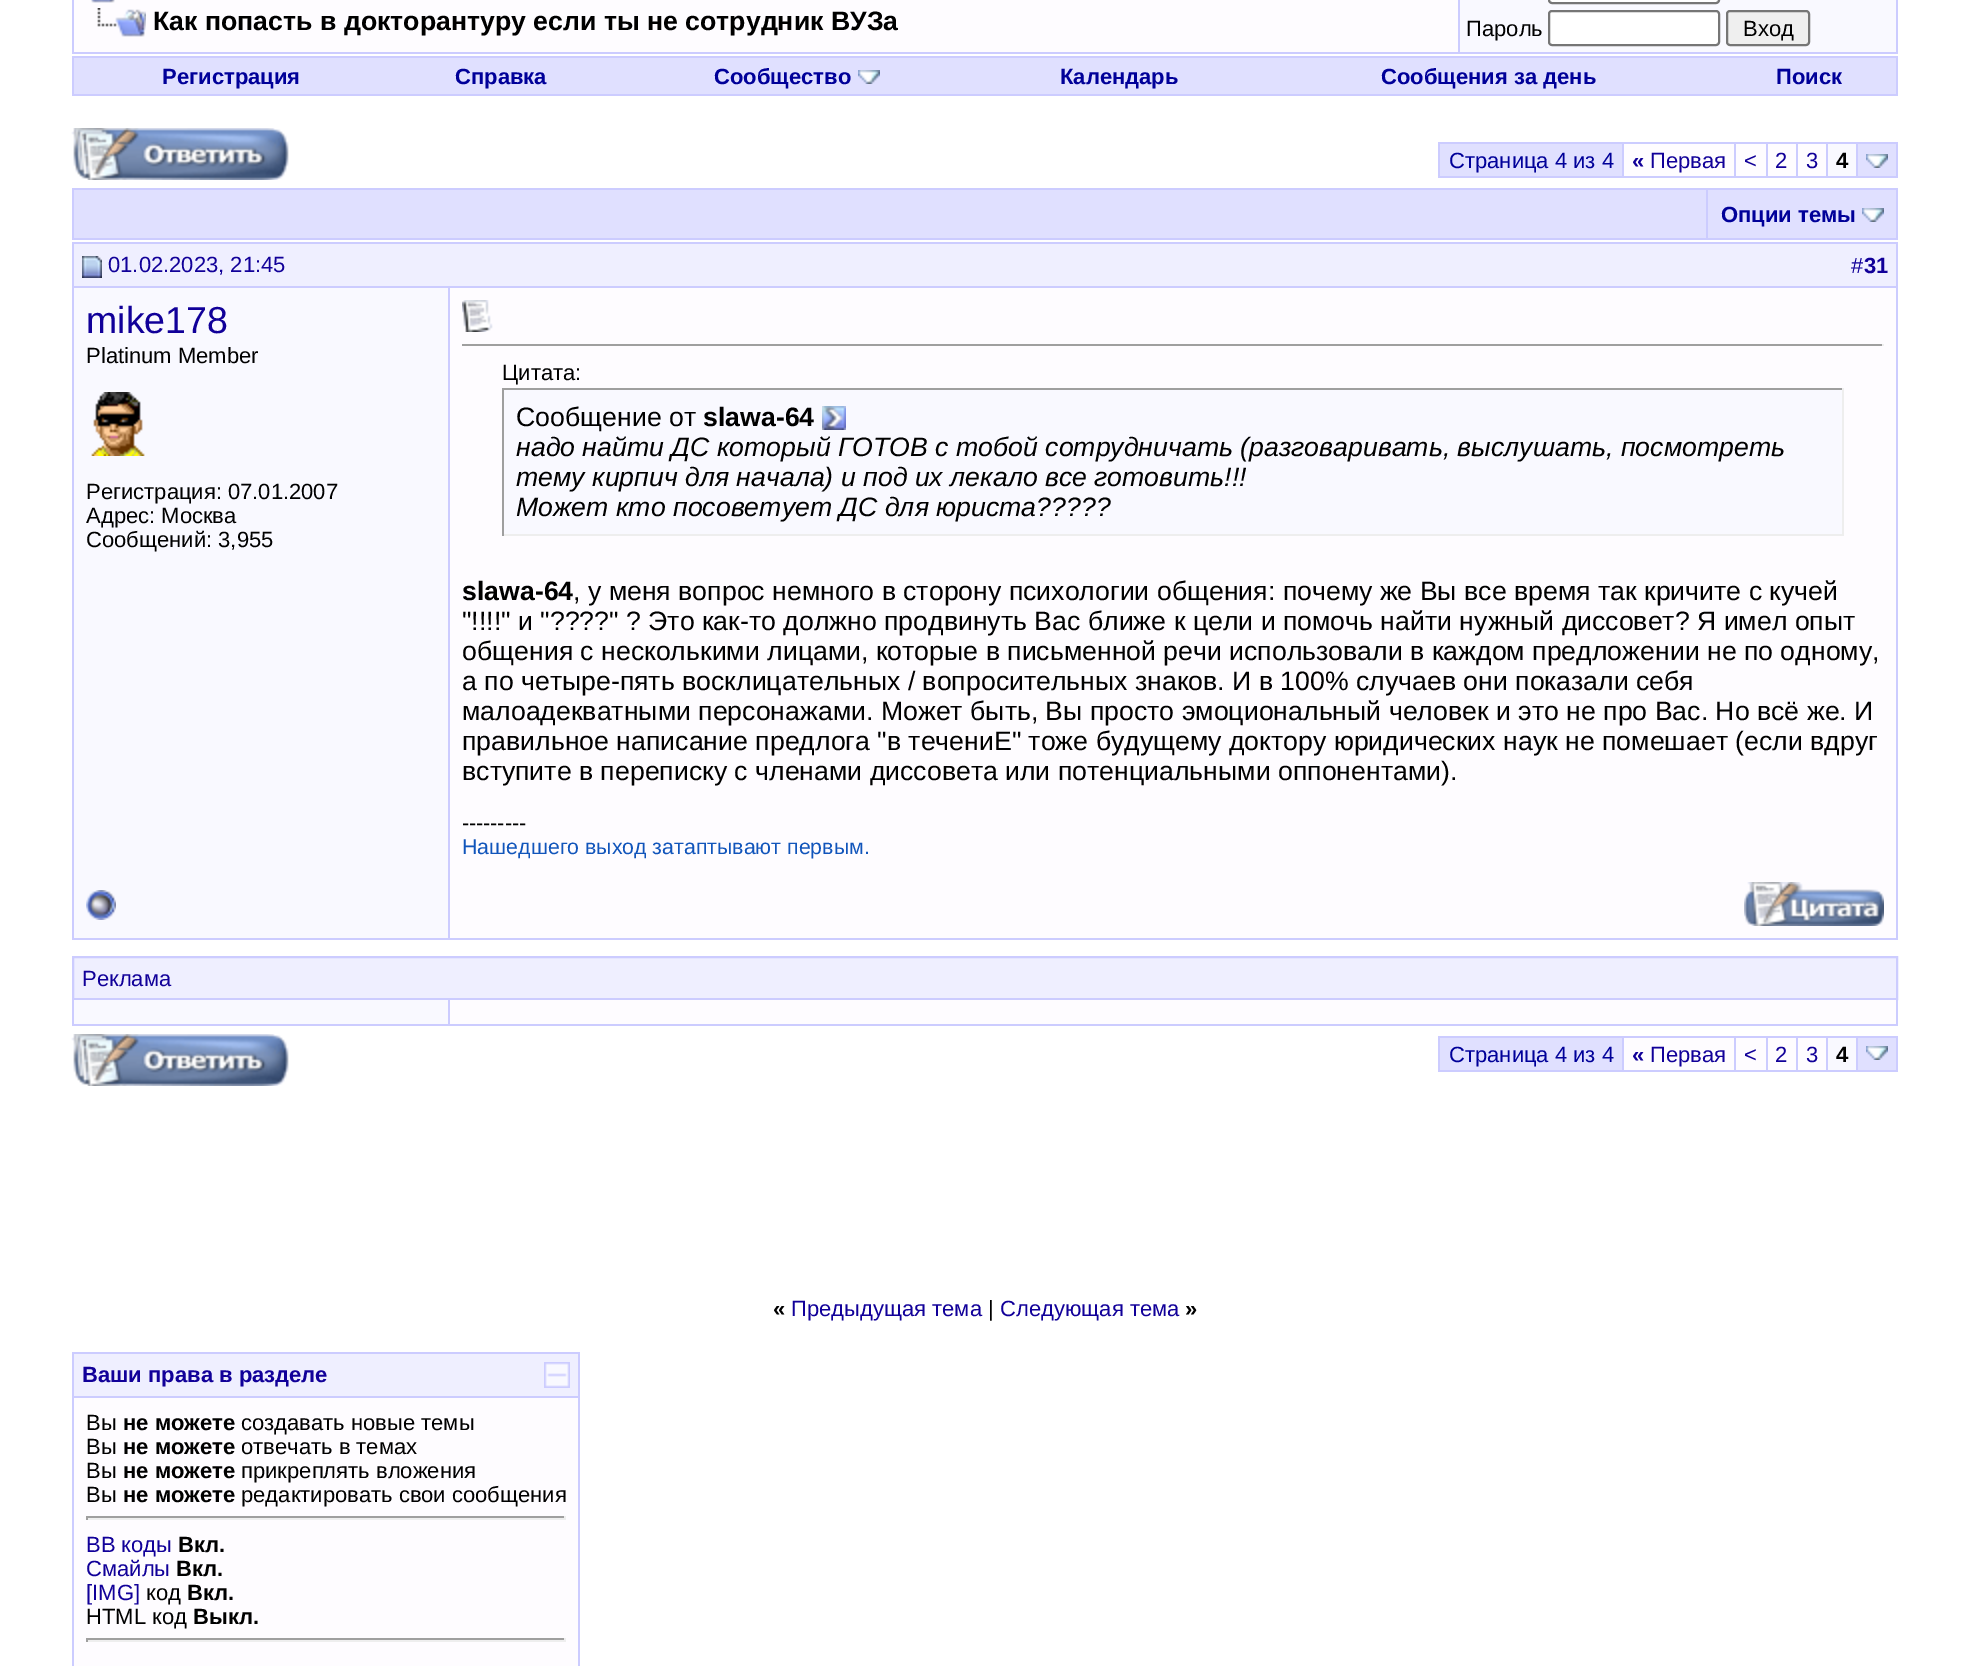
%!PS
<< /PageSize [1970 1666] >> setpagedevice
/rgb { dup -16 bitshift 255 div exch dup -8 bitshift 255 and 255 div exch 255 and 255 div setrgbcolor } def
/font { [ exch dup neg 0 0 3 -1 roll 0 0 ] selectfont } def
/text { moveto show } def
/roundrect { 5 dict begin { /r /h /w /y /x } { exch def } forall
  x r add y moveto x w add y 2 copy h add r arct x w add y h add x 1 index r arct
  x y h add x y r arct x y 2 copy exch w add exch r arct closepath end } def
/picture { 5 dict begin { /h /w /y /x /name } { exch def } forall
  gsave x y translate w h scale
  w h 8 [w 0 0 h 0 0] name (r) file false 3 colorimage grestore end } def
0 1666 translate 1 -1 scale
4 setmiterlimit
/s1 { /LiberationSans-Bold 26.67 font 16#000000 rgb } def
/s2 { /LiberationSans-Regular 22 font 16#000000 rgb } def
/s3 { /LiberationSans-Bold 22 font 16#000099 rgb } def
/s4 { /LiberationSans-Regular 22 font 16#000099 rgb } def
/s5 { /LiberationSans-Bold 22 font 16#110099 rgb } def
/s6 { /LiberationSans-Regular 22 font 16#110099 rgb } def
/s7 { /LiberationSans-Bold 22 font 16#000000 rgb } def
/s8 { /LiberationSans-Regular 37.5 font 16#110099 rgb } def
/s9 { /LiberationSans-Regular 26.67 font 16#000000 rgb } def
/s10 { /LiberationSans-Italic 26.67 font 16#000000 rgb } def
/s11 { /LiberationSans-Regular 21.3 font 16#000000 rgb } def
/s12 { /LiberationSans-Regular 21.3 font 16#1155BB rgb } def
16#FFFFFF rgb
0 0 1970 1666 rectfill
16#CCCCFF rgb
72 0 1826 54 rectfill
16#FEFCFF rgb
74 0 1384 52 rectfill
(pic1.raw) 91 0 24 3 picture
(pic2.raw) 97 8 49 29 picture
s1
(Как попасть в докторантуру если ты не сотрудник ВУЗа) 153 30 text
16#F9F9FF rgb
1460 0 436 52 rectfill
16#FFFFFF rgb
1549 -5 170 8 3 roundrect gsave fill grestore
16#767676 rgb
2 setlinewidth
stroke
s2
(Пароль) 1466 36 text
16#FFFFFF rgb
1549 11 170 34 3 roundrect gsave fill grestore
16#767676 rgb
stroke
16#EFEFEF rgb
1727 11 82 34 3 roundrect gsave fill grestore
16#767676 rgb
stroke
s2
(Вход) 1743 36 text
16#CCCCFF rgb
72 56 1826 40 rectfill
16#E0E0FF rgb
74 58 1822 36 rectfill
s3
(Регистрация) 162 84 text
(Справка) 455 84 text
(Сообщество) 714 84 text
(pic3.raw) 858 70 22 14 picture
(Календарь) 1060 84 text
(Сообщения за день) 1381 84 text
(Поиск) 1776 84 text
(pic4.raw) 71 128 218 52 picture
16#CCCCFF rgb
1438 142 460 36 rectfill
16#E0E0FF rgb
1440 144 182 32 rectfill
s4
(Страница 4 из 4) 1449 168 text
16#FEFCFF rgb
1624 144 110 32 rectfill
s5
(«) 1632 168 text
s6
(Первая) 1650 168 text
16#FEFCFF rgb
1736 144 30 32 rectfill
s6
(<) 1744 168 text
16#FEFCFF rgb
1768 144 28 32 rectfill
s6
(2) 1775 168 text
16#FEFCFF rgb
1798 144 28 32 rectfill
s6
(3) 1806 168 text
16#F9F9FF rgb
1828 144 28 32 rectfill
s7
(4) 1836 168 text
16#E0E0FF rgb
1858 144 38 32 rectfill
(pic3.raw) 1866 154 22 14 picture
16#CCCCFF rgb
72 188 1826 52 rectfill
16#E0E0FF rgb
74 190 1632 48 rectfill
1708 190 188 48 rectfill
s3
(Опции темы) 1721 222 text
(pic3.raw) 1862 208 22 14 picture
16#EFEFFF rgb
74 244 1822 42 rectfill
16#CCCCFF rgb
72 242 1826 2 rectfill
72 286 378 2 rectfill
72 242 2 628 rectfill
(pic5.raw) 82 256 20 22 picture
s6
(01.02.2023, 21:45) 108 272 text
16#CCCCFF rgb
1896 242 2 698 rectfill
450 286 1448 2 rectfill
s6
(#) 1851 273 text
s5
(31) 1864 273 text
16#F9F9FF rgb
74 288 374 650 rectfill
16#CCCCFF rgb
448 288 2 652 rectfill
s8
(mike178) 86 333 text
s2
(Platinum Member) 86 363 text
(pic6.raw) 91 392 54 64 picture
(Регистрация: 07.01.2007) 86 499 text
(Адрес: Москва) 86 523 text
(Сообщений: 3,955) 86 547 text
16#FEFCFF rgb
450 288 1446 650 rectfill
(pic7.raw) 462 300 31 32 picture
16#9F9F9F rgb
462 344 1422 2 rectfill
16#EEEEEE rgb
1882 344 2 2 rectfill
s2
(Цитата:) 502 380 text
16#F9F9FF rgb
504 390 1338 144 rectfill
16#9F9F9F rgb
502 388 1342 2 rectfill
16#EEEEEE rgb
1842 388 2 148 rectfill
502 534 1342 2 rectfill
16#9F9F9F rgb
502 388 2 148 rectfill
s9
(Сообщение от) 516 426 text
s1
(slawa-64) 703 426 text
(pic8.raw) 822 406 24 24 picture
s10
(надо найти ДС который ГОТОВ с тобой сотрудничать \(разговаривать, выслушать, посмотреть) 516 456 text
(тему кирпич для начала\) и под их лекало все готовить!!!) 516 486 text
(Может кто посоветует ДС для юриста?????) 516 516 text
s1
(slawa-64) 462 600 text
s9
(, у меня вопрос немного в сторону психологии общения: почему же Вы все время так кричите с кучей) 573 600 text
("!!!!" и "????" ? Это как-то должно продвинуть Вас ближе к цели и помочь найти нужный диссовет? Я имел опыт) 462 630 text
(общения с несколькими лицами, которые в письменной речи использовали в каждом предложении не по одному,) 462 660 text
(а по четыре-пять восклицательных / вопросительных знаков. И в 100% случаев они показали себя) 462 690 text
(малоадекватными персонажами. Может быть, Вы просто эмоциональный человек и это не про Вас. Но всё же. И) 462 720 text
(правильное написание предлога "в течениЕ" тоже будущему доктору юридических наук не помешает \(если вдруг) 462 750 text
(вступите в переписку с членами диссовета или потенциальными оппонентами\).) 462 780 text
s11
(---------) 462 830 text
s12
(Нашедшего выход затаптывают первым.) 462 854 text
16#CCCCFF rgb
72 938 1826 2 rectfill
72 870 2 70 rectfill
(pic9.raw) 86 890 30 30 picture
(pic10.raw) 1744 882 140 44 picture
16#EFEFFF rgb
73 957 moveto 1897 957 lineto 1897 999 lineto 73 999 lineto closepath gsave fill grestore
16#CCCCFF rgb
stroke
s6
(Реклама) 82 986 text
16#F9F9FF rgb
74 1000 374 24 rectfill
16#CCCCFF rgb
72 1024 376 2 rectfill
72 1000 2 26 rectfill
16#FEFCFF rgb
450 1000 1446 24 rectfill
16#CCCCFF rgb
1896 1000 2 26 rectfill
448 1024 1450 2 rectfill
448 1000 2 26 rectfill
(pic4.raw) 71 1034 218 52 picture
1438 1036 460 36 rectfill
16#E0E0FF rgb
1440 1038 182 32 rectfill
s4
(Страница 4 из 4) 1449 1062 text
16#FEFCFF rgb
1624 1038 110 32 rectfill
s5
(«) 1632 1062 text
s6
(Первая) 1650 1062 text
16#FEFCFF rgb
1736 1038 30 32 rectfill
s6
(<) 1744 1062 text
16#FEFCFF rgb
1768 1038 28 32 rectfill
s6
(2) 1775 1062 text
16#FEFCFF rgb
1798 1038 28 32 rectfill
s6
(3) 1806 1062 text
16#F9F9FF rgb
1828 1038 28 32 rectfill
s7
(4) 1836 1062 text
16#E0E0FF rgb
1858 1038 38 32 rectfill
(pic3.raw) 1866 1046 22 14 picture
s7
(«) 773 1316 text
s6
(Предыдущая тема) 791 1316 text
s2
(|) 988 1316 text
s6
(Следующая тема) 1000 1316 text
s7
(») 1185 1316 text
16#CCCCFF rgb
72 1352 508 314 rectfill
16#EFEFFF rgb
74 1354 504 42 rectfill
s5
(Ваши права в разделе) 82 1382 text
(pic11.raw) 544 1362 26 26 picture
16#FEFCFF rgb
74 1398 504 268 rectfill
s2
(Вы) 86 1430 text
s7
(не можете) 123 1430 text
s2
(создавать новые темы) 241 1430 text
(Вы) 86 1454 text
s7
(не можете) 123 1454 text
s2
(отвечать в темах) 241 1454 text
(Вы) 86 1478 text
s7
(не можете) 123 1478 text
s2
(прикреплять вложения) 241 1478 text
(Вы) 86 1502 text
s7
(не можете) 123 1502 text
s2
(редактировать свои сообщения) 241 1502 text
16#9F9F9F rgb
86 1516 480 2 rectfill
16#EEEEEE rgb
564 1516 2 4 rectfill
86 1518 480 2 rectfill
16#9F9F9F rgb
86 1516 2 4 rectfill
s6
(BB коды) 86 1552 text
s7
(Вкл.) 178 1552 text
s6
(Смайлы) 86 1576 text
s7
(Вкл.) 176 1576 text
s6
([IMG]) 86 1600 text
s2
(код) 146 1600 text
s7
(Вкл.) 187 1600 text
s2
(HTML код) 86 1624 text
s7
(Выкл.) 193 1624 text
16#9F9F9F rgb
86 1638 480 2 rectfill
16#EEEEEE rgb
564 1638 2 4 rectfill
86 1640 480 2 rectfill
16#9F9F9F rgb
86 1638 2 4 rectfill
showpage
